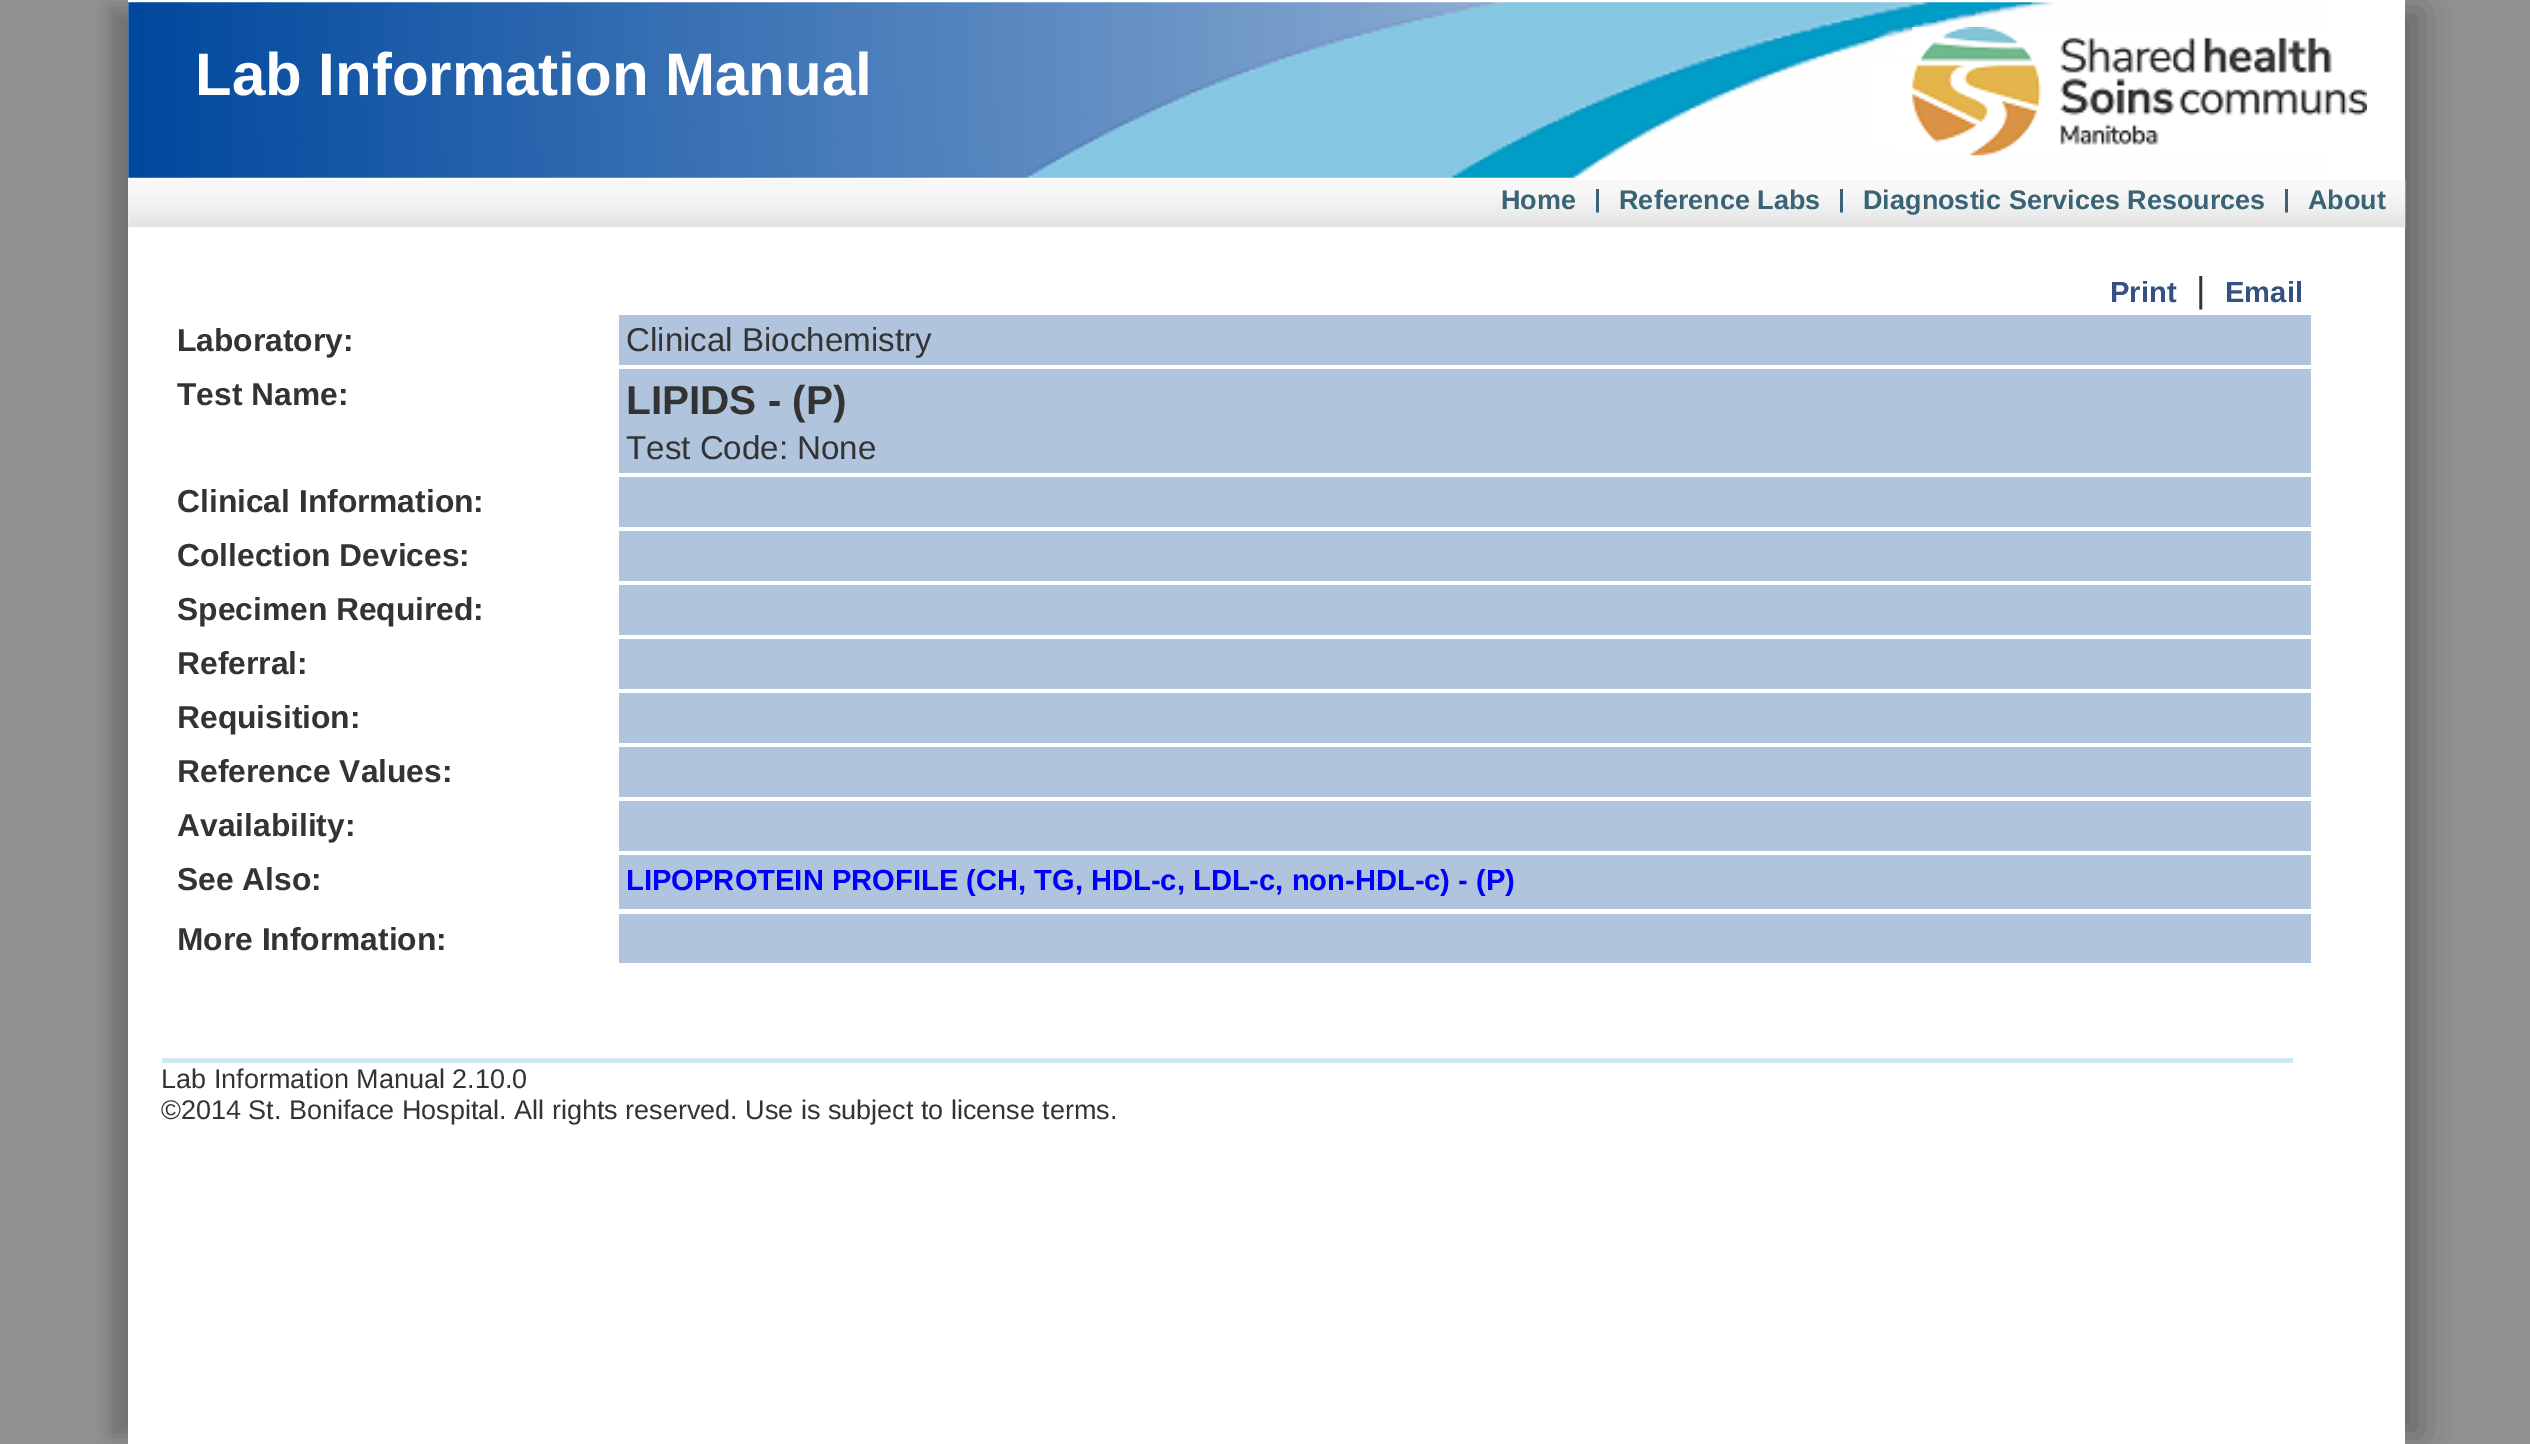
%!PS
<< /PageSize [2530 1444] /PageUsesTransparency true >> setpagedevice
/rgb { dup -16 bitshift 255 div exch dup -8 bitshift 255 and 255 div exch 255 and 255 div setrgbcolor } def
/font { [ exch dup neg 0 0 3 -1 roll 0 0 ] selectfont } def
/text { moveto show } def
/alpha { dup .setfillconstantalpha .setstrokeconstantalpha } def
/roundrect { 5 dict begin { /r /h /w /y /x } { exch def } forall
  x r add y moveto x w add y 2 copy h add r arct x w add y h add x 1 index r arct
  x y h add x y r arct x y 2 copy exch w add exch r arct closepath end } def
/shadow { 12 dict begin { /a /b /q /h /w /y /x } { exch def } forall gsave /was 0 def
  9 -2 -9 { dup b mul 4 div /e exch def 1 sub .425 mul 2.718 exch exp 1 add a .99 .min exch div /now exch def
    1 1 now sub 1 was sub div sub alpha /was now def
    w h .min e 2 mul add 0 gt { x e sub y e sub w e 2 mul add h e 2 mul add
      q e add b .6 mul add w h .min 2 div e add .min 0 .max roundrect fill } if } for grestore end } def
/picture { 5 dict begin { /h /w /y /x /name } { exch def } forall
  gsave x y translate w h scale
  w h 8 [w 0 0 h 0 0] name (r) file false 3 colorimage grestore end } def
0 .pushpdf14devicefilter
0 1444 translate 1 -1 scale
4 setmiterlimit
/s1 { /LiberationSans-Bold 60 font 16#FFFFFF rgb } def
/s2 { /LiberationSans-Bold 27 font 16#3A6376 rgb } def
/s3 { /LiberationSans-Bold 25 font 16#3A6376 rgb } def
/s4 { /LiberationSans-Bold 29.15 font 16#355184 rgb } def
/s5 { /LiberationSans-Regular 36 font 16#333333 rgb } def
/s6 { /LiberationSans-Bold 31.75 font 16#333333 rgb } def
/s7 { /LiberationSans-Regular 33.1 font 16#333333 rgb } def
/s8 { /LiberationSans-Bold 40.5 font 16#333333 rgb } def
/s9 { /LiberationSans-Bold 29.15 font 16#0000FF rgb } def
/s10 { /LiberationSans-Regular 27 font 16#333333 rgb } def
16#919193 rgb
0 0 2530 1444 rectfill
16#696969 rgb
110 9 2259 1427 0 9 0.8 shadow
164 9 2259 1427 0 17 1 shadow
16#FFFFFF rgb
128 0 2277 1444 rectfill
(pic1.raw) 128 2 2239 176 picture
s1
(Lab Information Manual) 195 95 text
(pic2.raw) 128 180 2278 48 picture
s2
(Home) 1501 209 text
s3
(|) 1594 207 text
s2
(Reference Labs) 1619 209 text
s3
(|) 1838 207 text
s2
(Diagnostic Services Resources) 1863 209 text
s3
(|) 2283 207 text
s2
(About) 2308 209 text
s4
(Print) 2110 302 text
s5
(|) 2196 302 text
s4
(Email) 2225 302 text
s6
(Laboratory:) 177 351 text
16#B0C4DE rgb
619 315 1692 50 rectfill
s7
(Clinical Biochemistry) 626 351 text
s6
(Test Name:) 177 405 text
16#B0C4DE rgb
619 369 1692 104 rectfill
s8
(LIPIDS - \(P\)) 626 414 text
s7
(Test Code: None) 626 459 text
s6
(Clinical Information:) 177 512 text
16#B0C4DE rgb
619 477 1692 50 rectfill
s6
(Collection Devices:) 177 566 text
16#B0C4DE rgb
619 531 1692 50 rectfill
s6
(Specimen Required:) 177 620 text
16#B0C4DE rgb
619 585 1692 50 rectfill
s6
(Referral:) 177 674 text
16#B0C4DE rgb
619 639 1692 50 rectfill
s6
(Requisition:) 177 728 text
16#B0C4DE rgb
619 693 1692 50 rectfill
s6
(Reference Values:) 177 782 text
16#B0C4DE rgb
619 747 1692 50 rectfill
s6
(Availability:) 177 836 text
16#B0C4DE rgb
619 801 1692 50 rectfill
s6
(See Also:) 177 890 text
16#B0C4DE rgb
619 855 1692 54 rectfill
s9
(LIPOPROTEIN PROFILE \(CH, TG, HDL-c, LDL-c, non-HDL-c\) - \(P\)) 626 890 text
s6
(More Information:) 177 950 text
16#B0C4DE rgb
619 914 1692 49 rectfill
16#CFE7F3 rgb
162 1058 2131 5 rectfill
s10
(Lab Information Manual 2.10.0) 161 1088 text
(©2014 St. Boniface Hospital. All rights reserved. Use is subject to license terms.) 161 1119 text
.poppdf14devicefilter showpage
